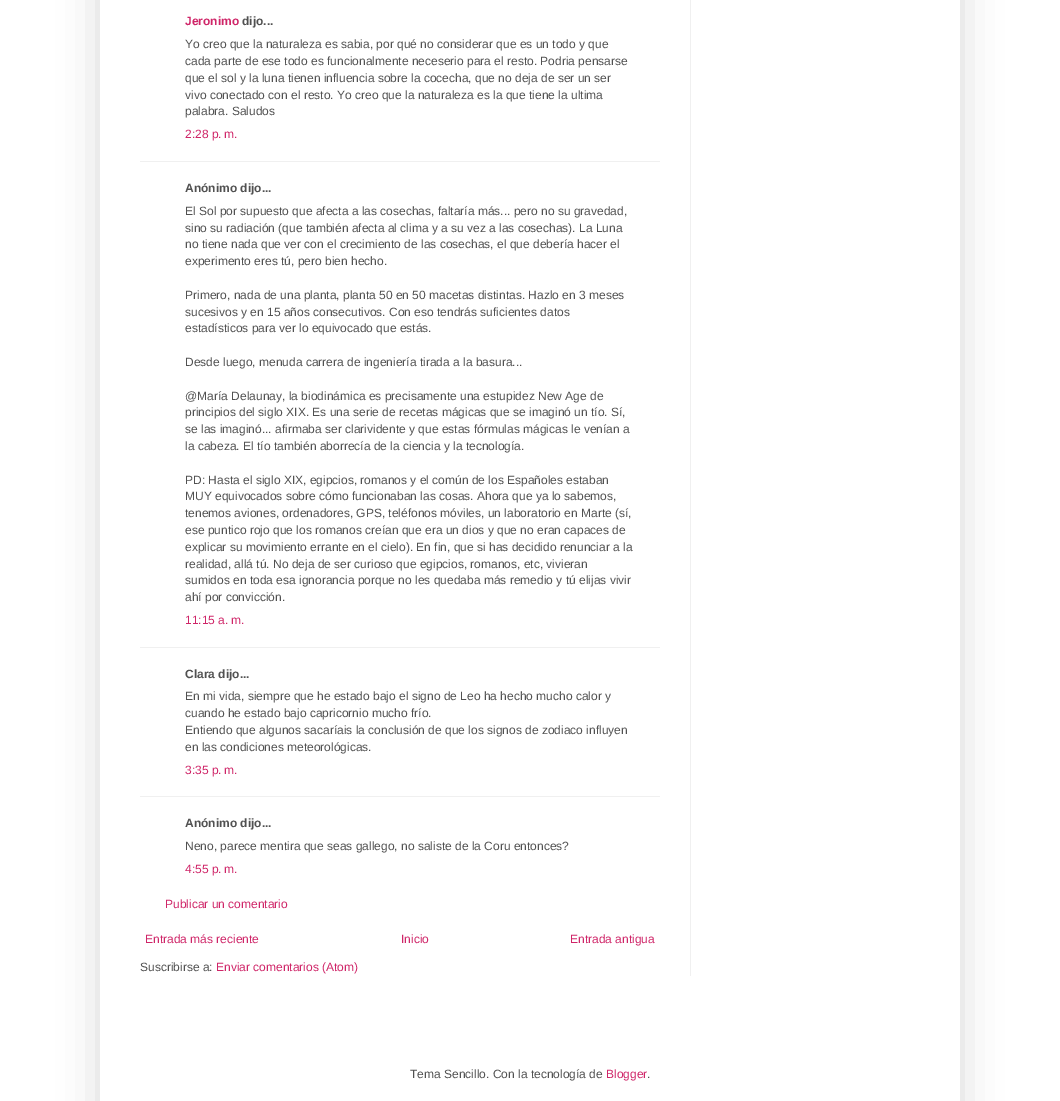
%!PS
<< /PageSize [1060 1101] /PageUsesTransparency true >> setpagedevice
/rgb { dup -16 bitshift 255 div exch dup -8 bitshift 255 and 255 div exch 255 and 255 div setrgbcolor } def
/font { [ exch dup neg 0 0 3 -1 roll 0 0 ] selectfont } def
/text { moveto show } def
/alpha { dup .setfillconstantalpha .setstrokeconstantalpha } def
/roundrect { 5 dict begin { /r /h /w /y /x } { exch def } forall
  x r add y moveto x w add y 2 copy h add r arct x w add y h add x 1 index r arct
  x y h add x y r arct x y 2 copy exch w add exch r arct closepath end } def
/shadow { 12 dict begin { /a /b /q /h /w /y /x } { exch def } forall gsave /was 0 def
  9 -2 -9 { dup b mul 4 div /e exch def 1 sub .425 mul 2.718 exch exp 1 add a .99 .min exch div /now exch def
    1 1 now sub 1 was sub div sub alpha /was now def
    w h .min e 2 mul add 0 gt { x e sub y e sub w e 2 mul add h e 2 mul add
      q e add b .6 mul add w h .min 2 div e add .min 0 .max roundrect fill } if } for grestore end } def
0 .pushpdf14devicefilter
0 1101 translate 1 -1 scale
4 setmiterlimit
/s1 { /LiberationSans-Bold 12 font 16#CF2568 rgb } def
/s2 { /LiberationSans-Bold 12 font 16#515151 rgb } def
/s3 { /LiberationSans-Regular 12 font 16#515151 rgb } def
/s4 { /LiberationSans-Regular 12 font 16#CF2568 rgb } def
16#FFFFFF rgb
0 0 1060 1101 rectfill
gsave
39 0 moveto 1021 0 lineto 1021 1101 lineto 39 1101 lineto closepath 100 -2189 moveto 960 -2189 lineto 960 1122 lineto 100 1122 lineto closepath eoclip newpath
16#000000 rgb
100 -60 860 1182 0 20 0.15 shadow
grestore
s1
(Jeronimo) 185 25 text
s2
(dijo...) 242 25 text
s3
(Yo creo que la naturaleza es sabia, por qué no considerar que es un todo y que) 185 48 text
(cada parte de ese todo es funcionalmente neceserio para el resto. Podria pensarse) 185 65 text
(que el sol y la luna tienen influencia sobre la cocecha, que no deja de ser un ser) 185 82 text
(vivo conectado con el resto. Yo creo que la naturaleza es la que tiene la ultima) 185 99 text
(palabra. Saludos) 185 115 text
s4
(2:28 p. m.) 185 138 text
16#F0F0F0 rgb
140 161 520 1 rectfill
s2
(Anónimo dijo...) 185 192 text
s3
(El Sol por supuesto que afecta a las cosechas, faltaría más... pero no su gravedad,) 185 215 text
(sino su radiación \(que también afecta al clima y a su vez a las cosechas\). La Luna) 185 232 text
(no tiene nada que ver con el crecimiento de las cosechas, el que debería hacer el) 185 248 text
(experimento eres tú, pero bien hecho.) 185 265 text
(Primero, nada de una planta, planta 50 en 50 macetas distintas. Hazlo en 3 meses) 185 299 text
(sucesivos y en 15 años consecutivos. Con eso tendrás suficientes datos) 185 316 text
(estadísticos para ver lo equivocado que estás.) 185 332 text
(Desde luego, menuda carrera de ingeniería tirada a la basura...) 185 366 text
(@María Delaunay, la biodinámica es precisamente una estupidez New Age de) 185 400 text
(principios del siglo XIX. Es una serie de recetas mágicas que se imaginó un tío. Sí,) 185 416 text
(se las imaginó... afirmaba ser clarividente y que estas fórmulas mágicas le venían a) 185 433 text
(la cabeza. El tío también aborrecía de la ciencia y la tecnología.) 185 450 text
(PD: Hasta el siglo XIX, egipcios, romanos y el común de los Españoles estaban) 185 484 text
(MUY equivocados sobre cómo funcionaban las cosas. Ahora que ya lo sabemos,) 185 500 text
(tenemos aviones, ordenadores, GPS, teléfonos móviles, un laboratorio en Marte \(sí,) 185 517 text
(ese puntico rojo que los romanos creían que era un dios y que no eran capaces de) 185 534 text
(explicar su movimiento errante en el cielo\). En fin, que si has decidido renunciar a la) 185 551 text
(realidad, allá tú. No deja de ser curioso que egipcios, romanos, etc, vivieran) 185 568 text
(sumidos en toda esa ignorancia porque no les quedaba más remedio y tú elijas vivir) 185 584 text
(ahí por convicción.) 185 601 text
s4
(11:15 a. m.) 185 624 text
16#F0F0F0 rgb
140 647 520 1 rectfill
s2
(Clara dijo...) 185 678 text
s3
(En mi vida, siempre que he estado bajo el signo de Leo ha hecho mucho calor y) 185 700 text
(cuando he estado bajo capricornio mucho frío.) 185 717 text
(Entiendo que algunos sacaríais la conclusión de que los signos de zodiaco influyen) 185 734 text
(en las condiciones meteorológicas.) 185 751 text
s4
(3:35 p. m.) 185 774 text
16#F0F0F0 rgb
140 796 520 1 rectfill
s2
(Anónimo dijo...) 185 827 text
s3
(Neno, parece mentira que seas gallego, no saliste de la Coru entonces?) 185 850 text
s4
(4:55 p. m.) 185 873 text
(Publicar un comentario) 165 908 text
(Entrada más reciente) 145 943 text
(Inicio) 401 943 text
(Entrada antigua) 570 943 text
s3
(Suscribirse a:) 140 971 text
s4
(Enviar comentarios \(Atom\)) 216 971 text
16#F0F0F0 rgb
690 0 1 976 rectfill
s3
(Tema Sencillo. Con la tecnología de) 410 1078 text
s4
(Blogger) 606 1078 text
s3
(.) 647 1078 text
.poppdf14devicefilter showpage
